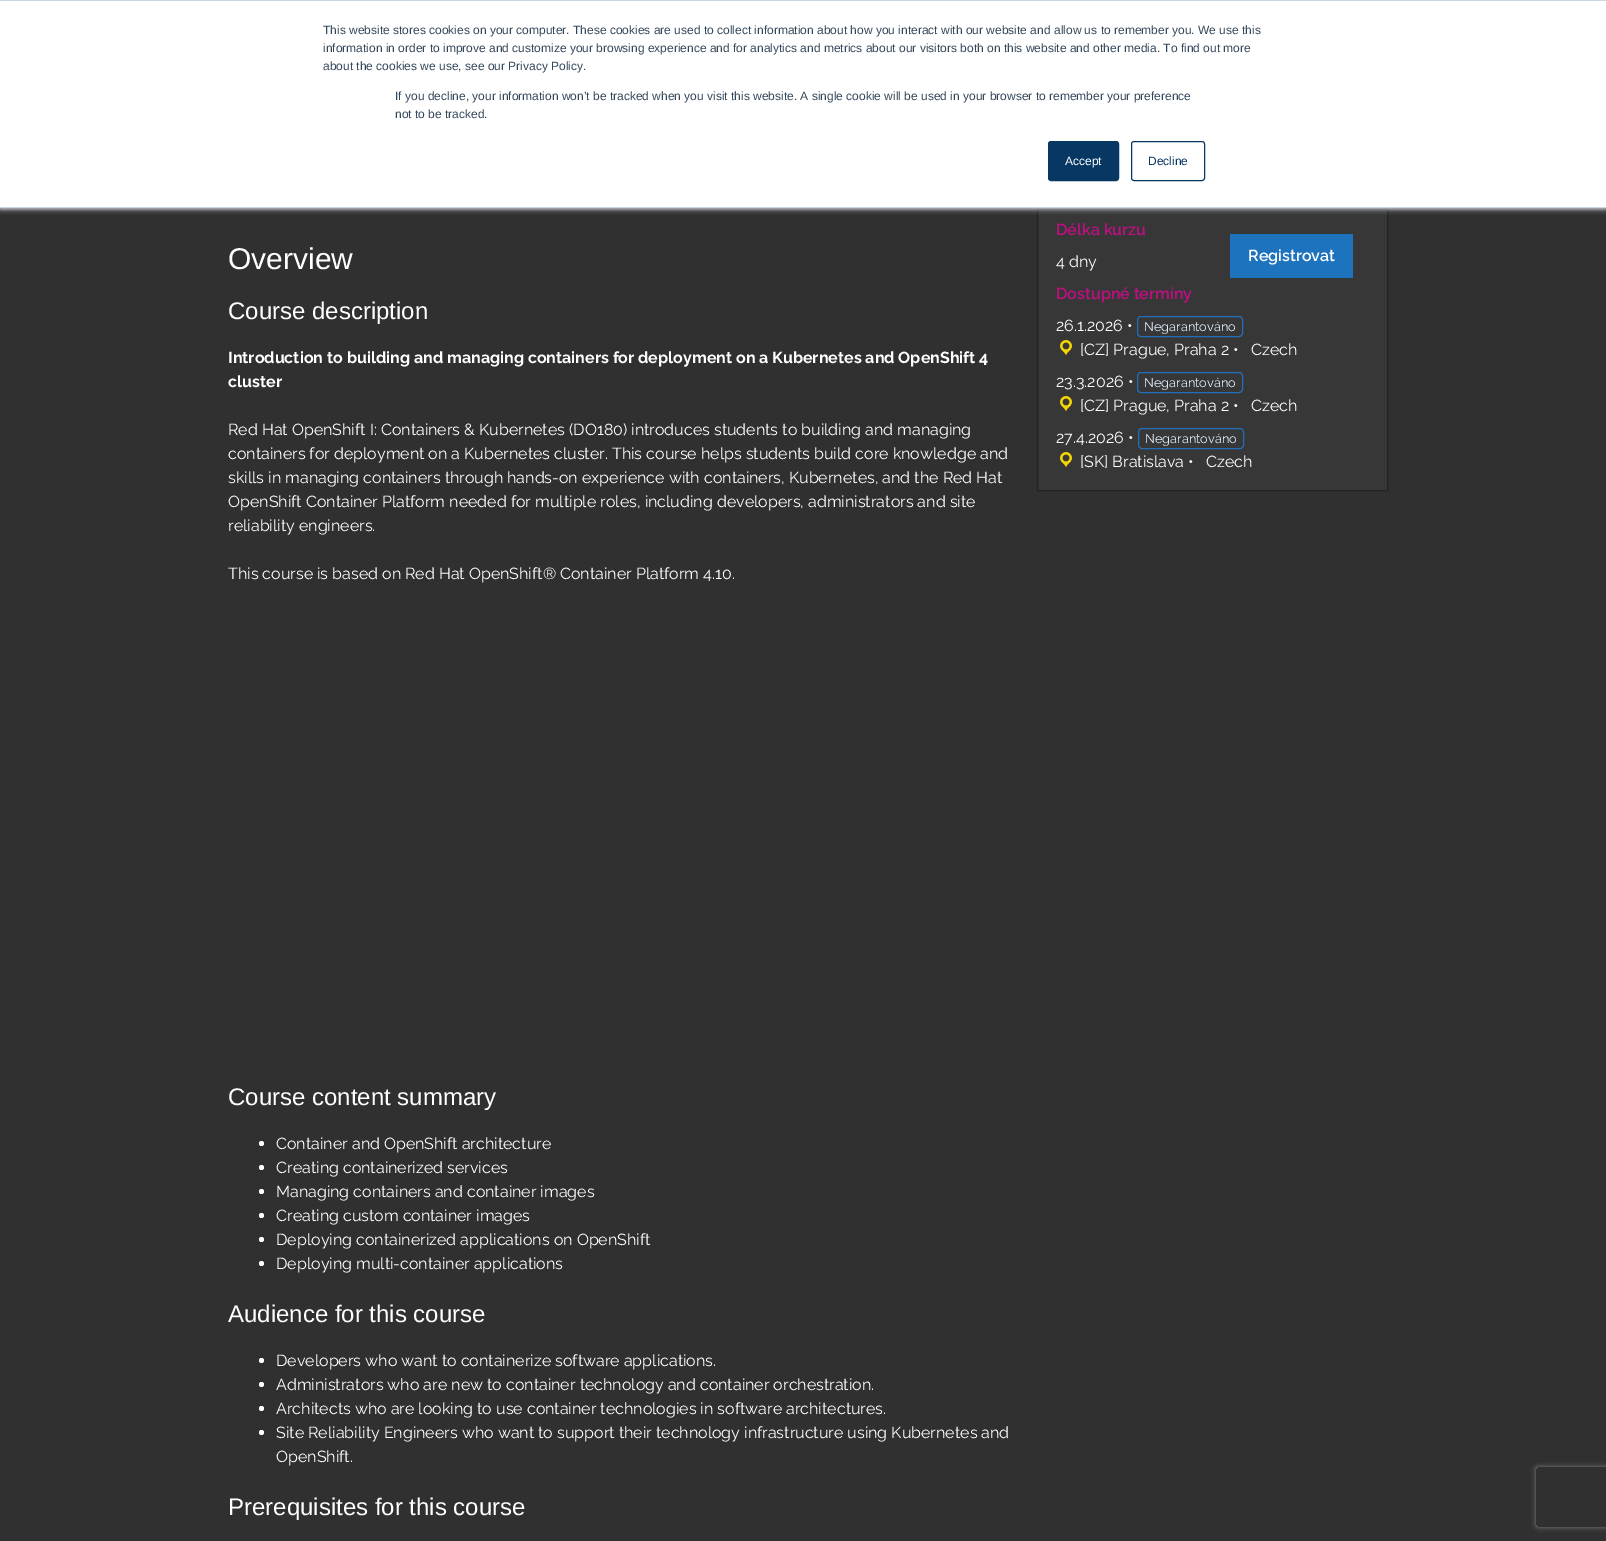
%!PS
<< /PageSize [1606 1541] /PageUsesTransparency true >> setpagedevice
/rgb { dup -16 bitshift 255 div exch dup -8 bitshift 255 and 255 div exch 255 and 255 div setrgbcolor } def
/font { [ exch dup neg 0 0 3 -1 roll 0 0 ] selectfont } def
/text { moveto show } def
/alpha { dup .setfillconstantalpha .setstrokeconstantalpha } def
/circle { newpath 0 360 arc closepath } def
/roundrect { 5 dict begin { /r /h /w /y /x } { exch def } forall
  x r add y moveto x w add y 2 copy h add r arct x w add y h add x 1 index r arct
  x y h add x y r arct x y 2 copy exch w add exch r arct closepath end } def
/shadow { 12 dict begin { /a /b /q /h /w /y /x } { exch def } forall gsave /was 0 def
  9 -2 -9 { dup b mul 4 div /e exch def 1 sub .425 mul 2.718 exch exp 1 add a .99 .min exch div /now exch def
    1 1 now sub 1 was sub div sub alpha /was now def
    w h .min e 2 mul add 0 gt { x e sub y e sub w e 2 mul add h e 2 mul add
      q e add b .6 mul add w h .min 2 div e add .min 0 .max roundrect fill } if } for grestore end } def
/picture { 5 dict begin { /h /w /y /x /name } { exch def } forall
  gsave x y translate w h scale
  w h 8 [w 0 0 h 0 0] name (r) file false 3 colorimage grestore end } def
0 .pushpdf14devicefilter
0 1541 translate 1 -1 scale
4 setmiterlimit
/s1 { /LiberationSans-Regular 12 font 16#33475B rgb } def
/s2 { /LiberationSans-Regular 12 font 16#FFFFFF rgb } def
/s3 { /LiberationSans-Regular 12 font 16#073763 rgb } def
/s4 { /LiberationSans-Regular 30 font 16#FFFFFF rgb } def
/s5 { /LiberationSans-Regular 24 font 16#FFFFFF rgb } def
/s6 { /Raleway-Bold 16 font 16#FFFFFF rgb } def
/s7 { /Raleway-Regular 16 font 16#FFFFFF rgb } def
/s8 { /Raleway-SemiBold 16 font 16#BF0E82 rgb } def
/s9 { /Raleway-SemiBold 16 font 16#FFFFFF rgb } def
/s10 { /Raleway-Regular 12.75 font 16#E0F0FF rgb } def
16#303030 rgb
0 0 1606 1541 rectfill
16#373737 rgb
1037.5 209.5 moveto 1387.5 209.5 lineto 1387.5 490.5 lineto 1037.5 490.5 lineto closepath gsave fill grestore
16#222222 rgb
stroke
16#EAF0F6 rgb
0 1 1606 208 0 2.5 1 shadow
16#FFFFFF rgb
0 1 1606 206 rectfill
16#CBD6E2 rgb
0 0 1606 1 rectfill
0 207 1606 1 rectfill
s1
(This website stores cookies on your computer. These cookies are used to collect information about how you interact with our website and allow us to remember you. We use this) 323 34 text
(information in order to improve and customize your browsing experience and for analytics and metrics about our visitors both on this website and other media. To find out more) 323 52 text
(about the cookies we use, see our Privacy Policy.) 323 70 text
(If you decline, your information won’t be tracked when you visit this website. A single cookie will be used in your browser to remember your preference) 395 100 text
(not to be tracked.) 395 118 text
16#073763 rgb
1048.5 141.5 70 39 2.5 roundrect gsave fill grestore
stroke
s2
(Accept) 1065 165 text
16#073763 rgb
1131.5 141.5 73 39 2.5 roundrect stroke
(Decline) 1148 165 text
s4
(Overview) 228 269 text
s5
(Course description) 228 319 text
s6
(Introduction to building and managing containers for deployment on a Kubernetes and OpenShift 4) 228 363 text
(cluster) 228 387 text
s7
(Red Hat OpenShift I: Containers & Kubernetes \(DO180\) introduces students to building and managing) 228 435 text
(containers for deployment on a Kubernetes cluster. This course helps students build core knowledge and) 228 459 text
(skills in managing containers through hands-on experience with containers, Kubernetes, and the Red Hat) 228 483 text
(OpenShift Container Platform needed for multiple roles, including developers, administrators and site) 228 507 text
(reliability engineers.) 228 531 text
(This course is based on Red Hat OpenShift® Container Platform 4.10.) 228 579 text
s5
(Course content summary) 228 1105 text
261.5 1143.5 2.5 circle fill
s7
(Container and OpenShift architecture) 276 1149 text
261.5 1167.5 2.5 circle fill
(Creating containerized services) 276 1173 text
261.5 1191.5 2.5 circle fill
(Managing containers and container images) 276 1197 text
261.5 1215.5 2.5 circle fill
(Creating custom container images) 276 1221 text
261.5 1239.5 2.5 circle fill
(Deploying containerized applications on OpenShift) 276 1245 text
261.5 1263.5 2.5 circle fill
(Deploying multi-container applications) 276 1269 text
s5
(Audience for this course) 228 1322 text
261.5 1360.5 2.5 circle fill
s7
(Developers who want to containerize software applications.) 276 1366 text
261.5 1384.5 2.5 circle fill
(Administrators who are new to container technology and container orchestration.) 276 1390 text
261.5 1408.5 2.5 circle fill
(Architects who are looking to use container technologies in software architectures.) 276 1414 text
261.5 1432.5 2.5 circle fill
(Site Reliability Engineers who want to support their technology infrastructure using Kubernetes and) 276 1438 text
(OpenShift.) 276 1462 text
s5
(Prerequisites for this course) 228 1515 text
s8
(Délka kurzu) 1056 235 text
s7
(4 dny) 1056 267 text
16#1E73BE rgb
1230 234 123 44 rectfill
s9
(Registrovat) 1248 261 text
s8
(Dostupné termíny) 1056 299 text
s7
(26.1.2026 •) 1056 331 text
16#2070B9 rgb
1137.5 316.5 105 20 3.5 roundrect stroke
s10
(Negarantováno) 1144 331 text
(pic1.raw) 1060 340 12 16 picture
s7
([CZ] Prague, Praha 2 •   Czech) 1080 355 text
(23.3.2026 •) 1056 387 text
16#2070B9 rgb
1137.5 372.5 105 20 3.5 roundrect stroke
s10
(Negarantováno) 1144 387 text
(pic1.raw) 1060 396 12 16 picture
s7
([CZ] Prague, Praha 2 •   Czech) 1080 411 text
(27.4.2026 •) 1056 443 text
16#2070B9 rgb
1138.5 428.5 105 20 3.5 roundrect stroke
s10
(Negarantováno) 1145 443 text
(pic1.raw) 1060 452 12 16 picture
s7
([SK] Bratislava •   Czech) 1080 467 text
gsave
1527 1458 moveto 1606 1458 lineto 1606 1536 lineto 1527 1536 lineto closepath 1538 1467 moveto 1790 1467 lineto 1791 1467 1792 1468 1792 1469 curveto 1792 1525 lineto 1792 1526 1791 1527 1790 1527 curveto 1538 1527 lineto 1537 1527 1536 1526 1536 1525 curveto 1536 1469 lineto 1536 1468 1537 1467 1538 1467 curveto closepath eoclip newpath
16#808080 rgb
1536 1467 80 60 2 2.5 1 shadow
grestore
.poppdf14devicefilter showpage
